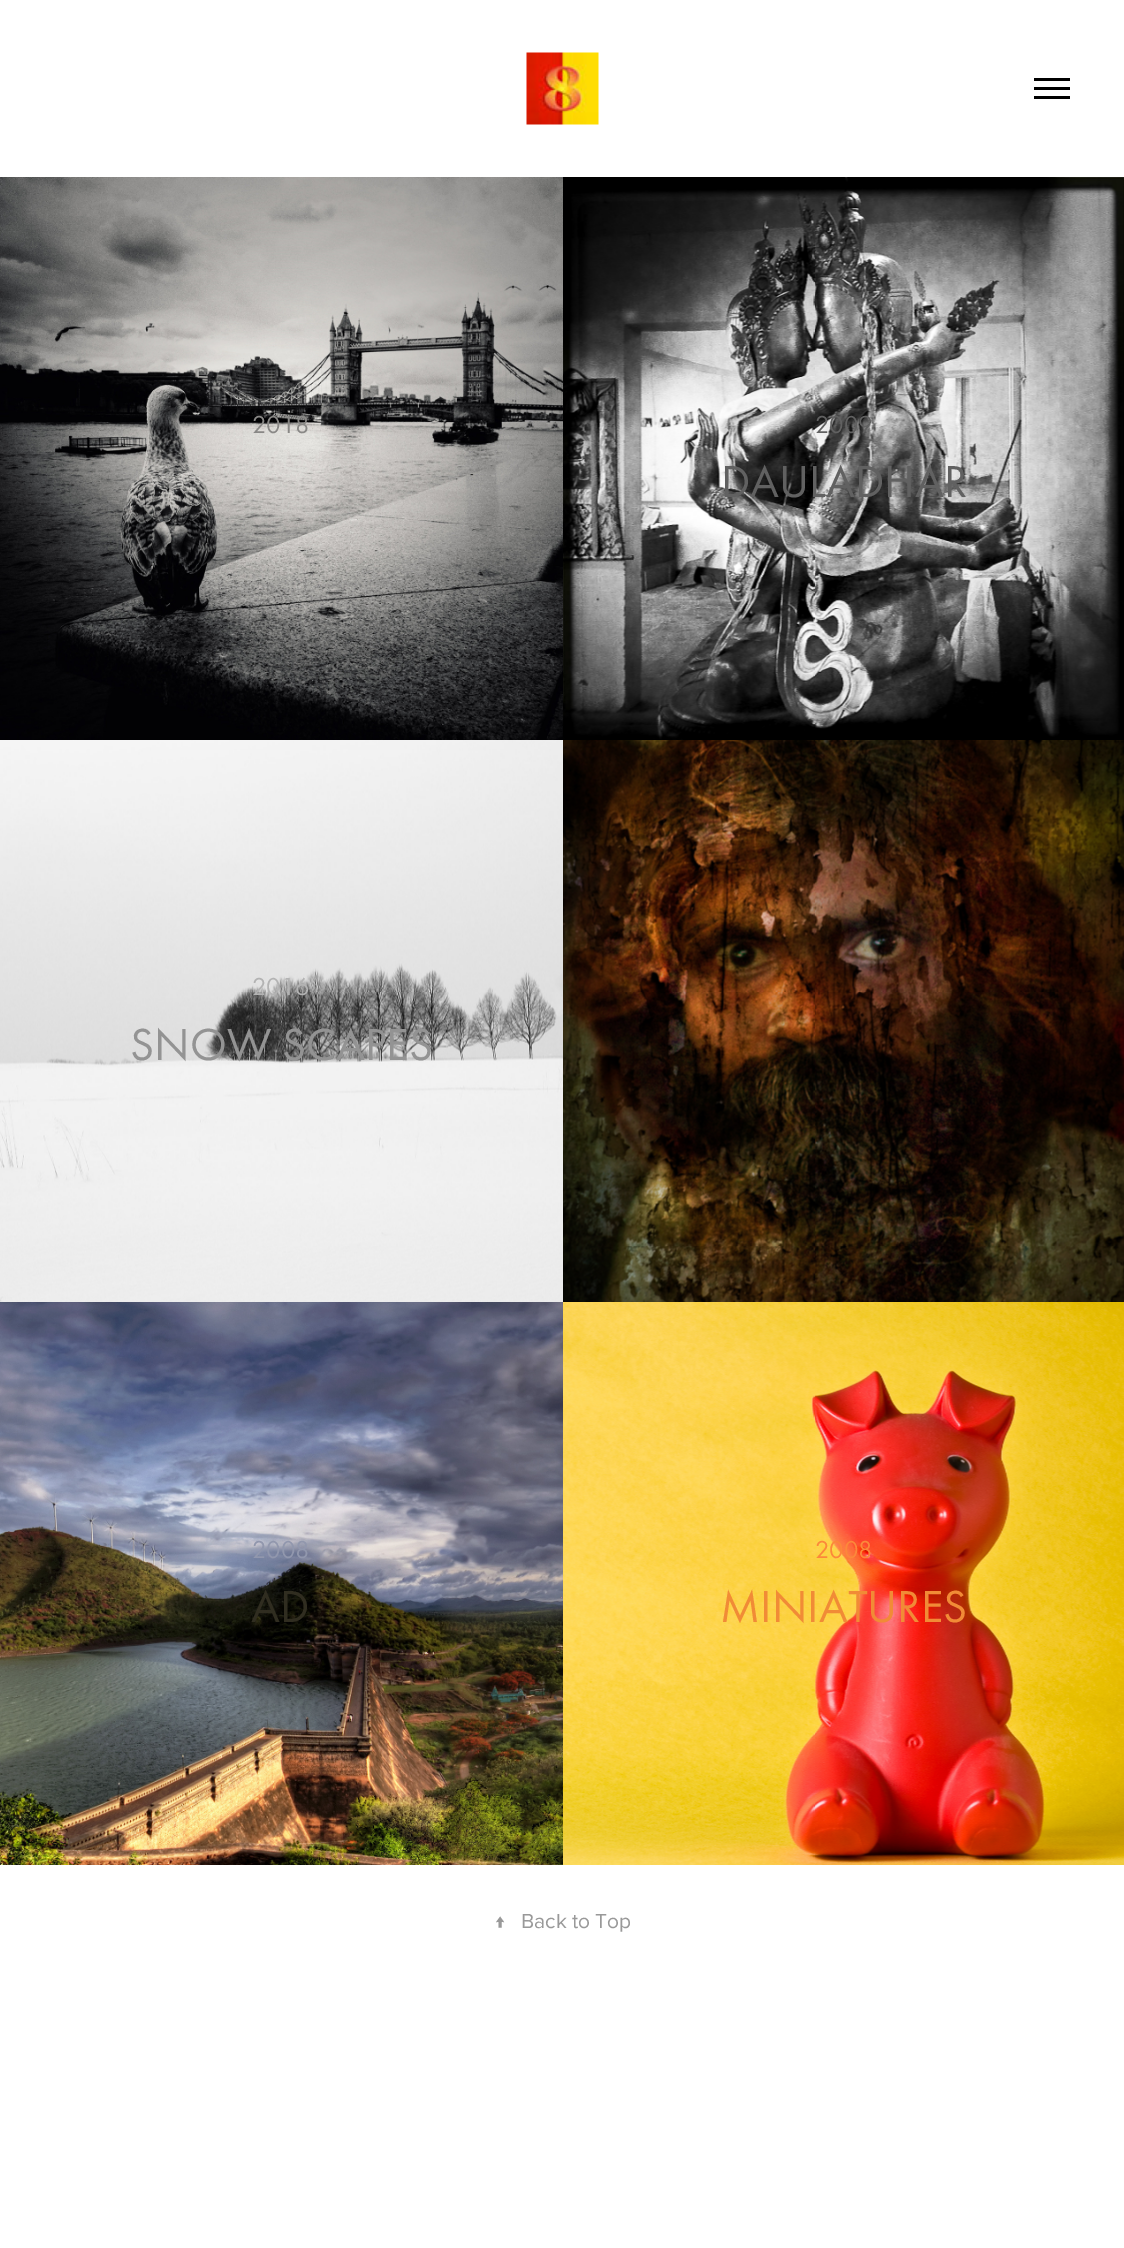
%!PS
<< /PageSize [1124 2248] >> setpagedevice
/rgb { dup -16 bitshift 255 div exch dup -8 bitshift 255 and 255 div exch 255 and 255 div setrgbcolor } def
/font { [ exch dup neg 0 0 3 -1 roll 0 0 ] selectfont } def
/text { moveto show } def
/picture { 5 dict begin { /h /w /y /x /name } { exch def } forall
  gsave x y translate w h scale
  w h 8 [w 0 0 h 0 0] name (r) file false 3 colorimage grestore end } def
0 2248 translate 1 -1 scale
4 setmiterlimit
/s1 { /FuturaPT-Regular 25.5 font 16#898886 rgb } def
/s2 { /FuturaPT-Regular 25.5 font 16#616161 rgb } def
/s3 { /FuturaPT-Regular 46.5 font 16#616161 rgb } def
/s4 { /FuturaPT-Regular 25.5 font 16#B3B3B3 rgb } def
/s5 { /FuturaPT-Regular 46.5 font 16#939393 rgb } def
/s6 { /FuturaPT-Regular 25.5 font 16#9197AD rgb } def
/s7 { /FuturaPT-Regular 46.5 font 16#302D20 rgb } def
/s8 { /FuturaPT-Regular 25.5 font 16#FC883A rgb } def
/s9 { /FuturaPT-Regular 46.5 font 16#F18B36 rgb } def
/s10 { /ProximaNova-Regular 21 font 16#999999 rgb } def
16#FFFFFF rgb
0 0 1124 2248 rectfill
(pic1.raw) 526 52 73 73 picture
16#000000 rgb
1034 78 36 3 rectfill
1034 87 36 3 rectfill
1034 96 36 3 rectfill
(pic2.raw) 0 177 563 563 picture
s1
(2018) 252 433 text
(pic3.raw) 563 177 561 563 picture
s2
(2009) 815 433 text
s3
(DAULADHAR) 721 497 text
(pic4.raw) 0 740 563 562 picture
s4
(2016) 252 995 text
s5
(SNOW SCAPES) 130 1060 text
(pic5.raw) 563 740 561 562 picture
(pic6.raw) 0 1302 563 563 picture
s6
(2008) 252 1558 text
s7
(AD) 251 1622 text
(pic7.raw) 563 1302 561 563 picture
s8
(2008) 815 1558 text
s9
(MINIATURES) 720 1622 text
s10
(↑) 494 1928 text
(Back to Top) 521 1928 text
showpage
